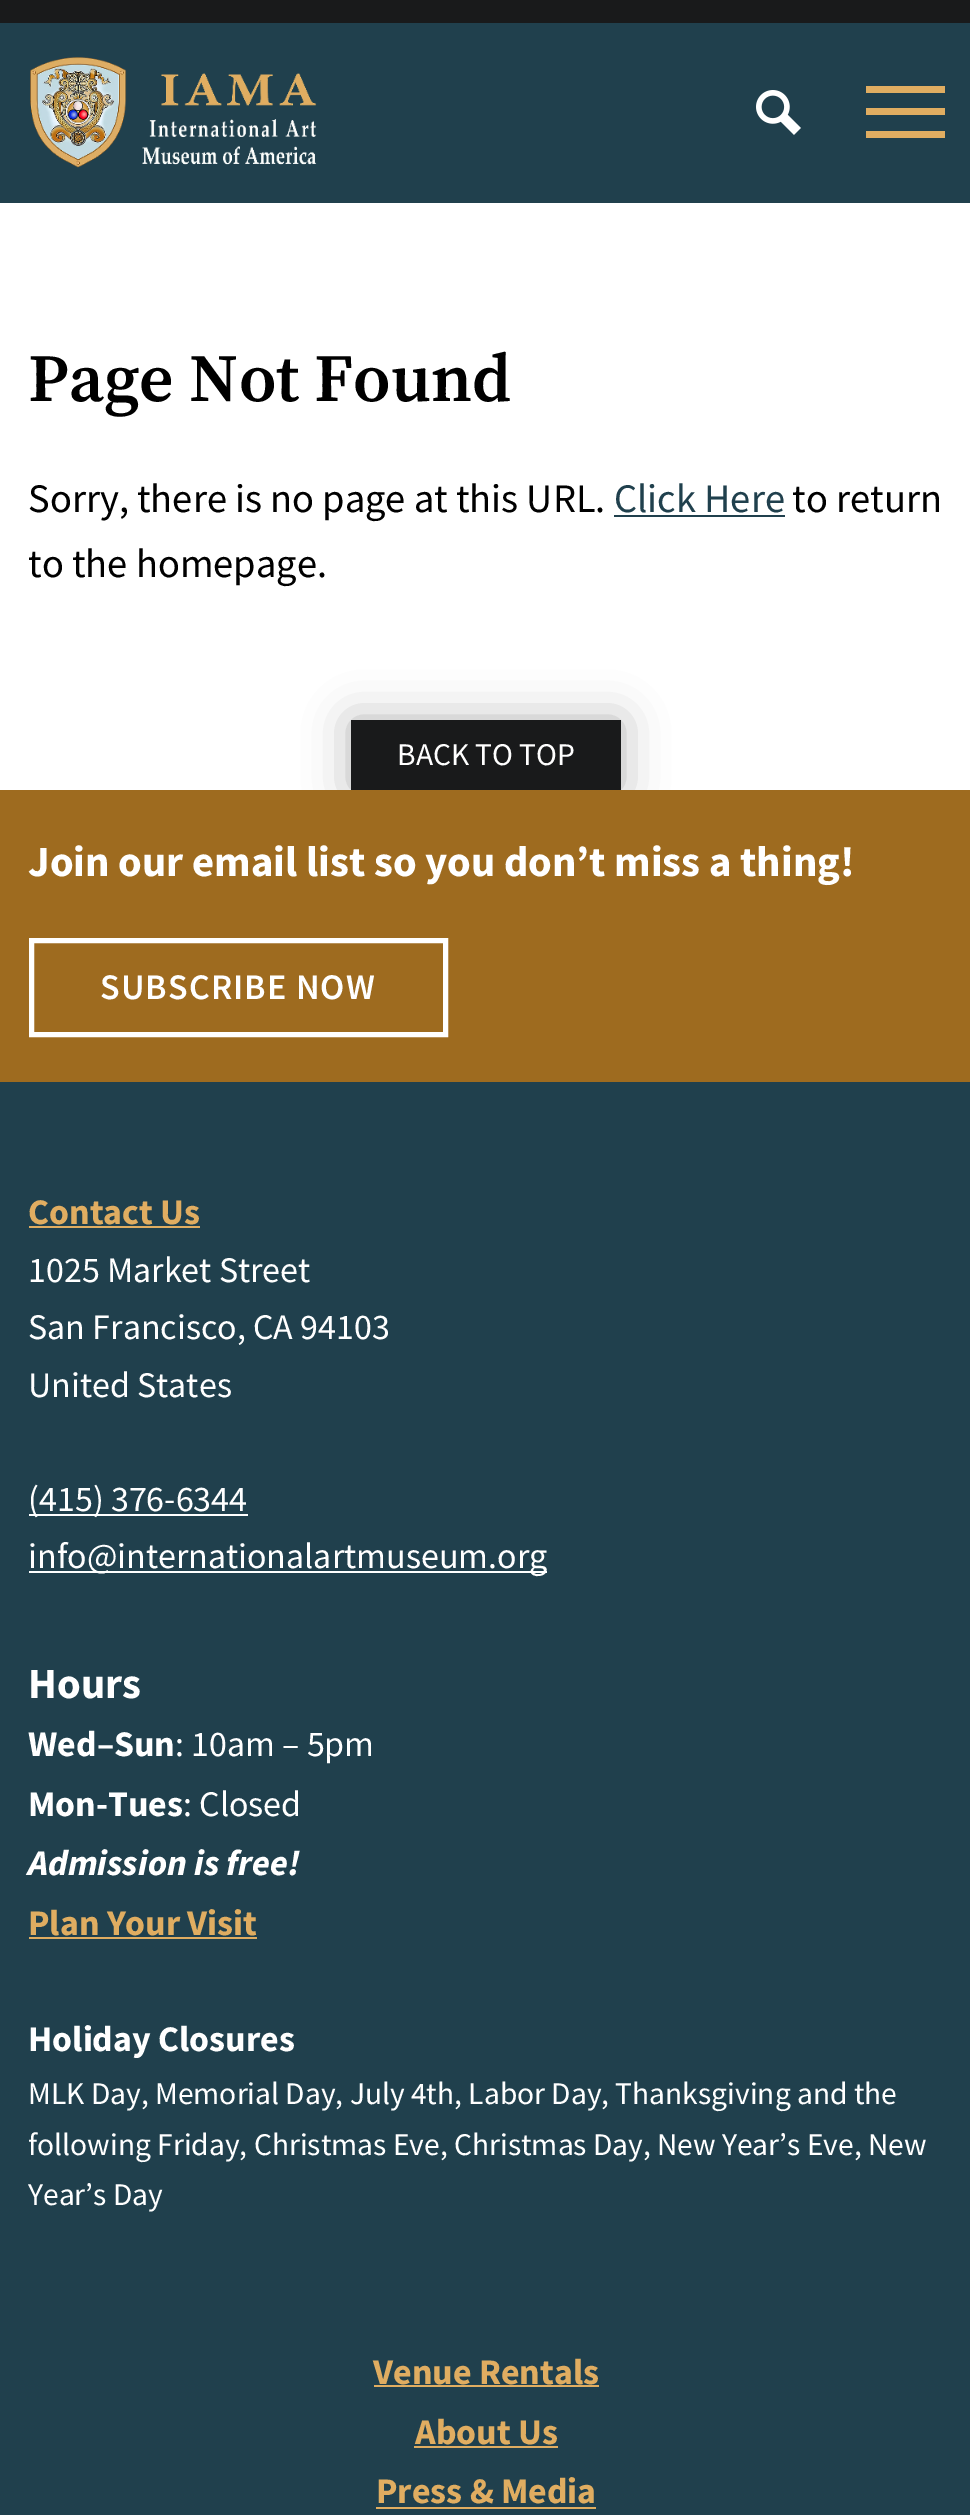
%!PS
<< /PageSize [970 2515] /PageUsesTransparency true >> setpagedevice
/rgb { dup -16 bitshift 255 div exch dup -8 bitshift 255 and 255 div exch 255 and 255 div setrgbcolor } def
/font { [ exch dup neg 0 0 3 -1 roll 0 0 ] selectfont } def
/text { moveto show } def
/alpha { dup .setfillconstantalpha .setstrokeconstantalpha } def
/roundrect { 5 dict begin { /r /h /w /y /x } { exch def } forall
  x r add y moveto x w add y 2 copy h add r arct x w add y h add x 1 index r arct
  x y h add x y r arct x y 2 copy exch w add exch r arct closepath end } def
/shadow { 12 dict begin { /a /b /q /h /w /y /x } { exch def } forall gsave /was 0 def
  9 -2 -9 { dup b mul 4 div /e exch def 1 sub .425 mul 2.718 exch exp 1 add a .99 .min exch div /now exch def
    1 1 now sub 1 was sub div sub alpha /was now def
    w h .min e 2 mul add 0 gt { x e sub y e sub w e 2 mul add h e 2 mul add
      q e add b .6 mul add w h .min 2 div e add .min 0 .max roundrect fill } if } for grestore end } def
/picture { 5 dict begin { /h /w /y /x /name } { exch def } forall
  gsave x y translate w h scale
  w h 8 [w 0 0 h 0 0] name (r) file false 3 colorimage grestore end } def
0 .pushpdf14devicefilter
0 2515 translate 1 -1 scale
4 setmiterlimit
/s1 { /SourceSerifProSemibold-SemiBold 67.5 font 16#000000 rgb } def
/s2 { /SourceSansPro-Regular 40.5 font 16#000000 rgb } def
/s3 { /SourceSansPro-Regular 40.5 font 16#20404D rgb } def
/s4 { /SourceSansPro-Regular 31.5 font 16#FFFFFF rgb } def
/s5 { /SourceSansPro-Bold 42.75 font 16#FFFFFF rgb } def
/s6 { /SourceSansPro-Bold 36 font 16#E0AD61 rgb } def
/s7 { /SourceSansPro-Regular 36 font 16#FFFFFF rgb } def
/s8 { /SourceSansPro-Bold 36 font 16#FFFFFF rgb } def
/s9 { /SourceSansPro-BoldItalic 36 font 16#FFFFFF rgb } def
16#FFFFFF rgb
0 0 970 2515 rectfill
16#191A1B rgb
0 0 970 23 rectfill
16#20404D rgb
0 23 970 180 rectfill
(pic1.raw) 30 57 287 111 picture
(pic2.raw) 756 90 45 45 picture
16#E0AD61 rgb
866 86 79 7 rectfill
866 108 79 7 rectfill
866 131 79 7 rectfill
s1
(Page Not Found) 28 401 text
s2
(Sorry, there is no page at this URL.) 28 512 text
s3
(Click Here) 614 512 text
614 515 171 2 rectfill
s2
(to return) 792 512 text
(to the homepage.) 28 577 text
351 720 270 70 0 22.5 0.3 shadow
16#191A1B rgb
351 720 270 70 rectfill
s4
(BACK TO TOP) 397 765 text
16#9E6B1F rgb
0 790 970 292 rectfill
s5
(Join our email list so you don’t miss a thing!) 28 876 text
5 setlinewidth
31.5 940.5 414 94 rectstroke
/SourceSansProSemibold-SemiBold 36 font
100 999 moveto 1.1 0 (SUBSCRIBE NOW) ashow
16#20404D rgb
0 1082 970 1433 rectfill
s6
(Contact Us) 28 1224 text
29 1226 171 2 rectfill
s7
(1025 Market Street) 28 1282 text
(San Francisco, CA 94103) 28 1339 text
(United States) 28 1397 text
29 1514 219 2 rectfill
(\(415\) 376-6344) 28 1511 text
29 1571 518 2 rectfill
(info@internationalartmuseum.org) 28 1568 text
s5
(Hours) 28 1698 text
s8
(Wed–Sun) 28 1756 text
s7
(: 10am – 5pm) 175 1756 text
s8
(Mon-Tues) 28 1816 text
s7
(: Closed) 183 1816 text
s9
(Admission is free!) 28 1875 text
s6
(Plan Your Visit) 28 1935 text
29 1937 228 2 rectfill
s8
(Holiday Closures) 28 2051 text
s4
(MLK Day, Memorial Day, July 4th, Labor Day, Thanksgiving and the) 28 2104 text
(following Friday, Christmas Eve, Christmas Day, New Year’s Eve, New) 28 2155 text
(Year’s Day) 28 2205 text
s6
(Venue Rentals) 373 2384 text
374 2385 225 2 rectfill
(About Us) 415 2444 text
414 2446 144 2 rectfill
(Press & Media) 376 2503 text
376 2507 220 2 rectfill
.poppdf14devicefilter showpage
